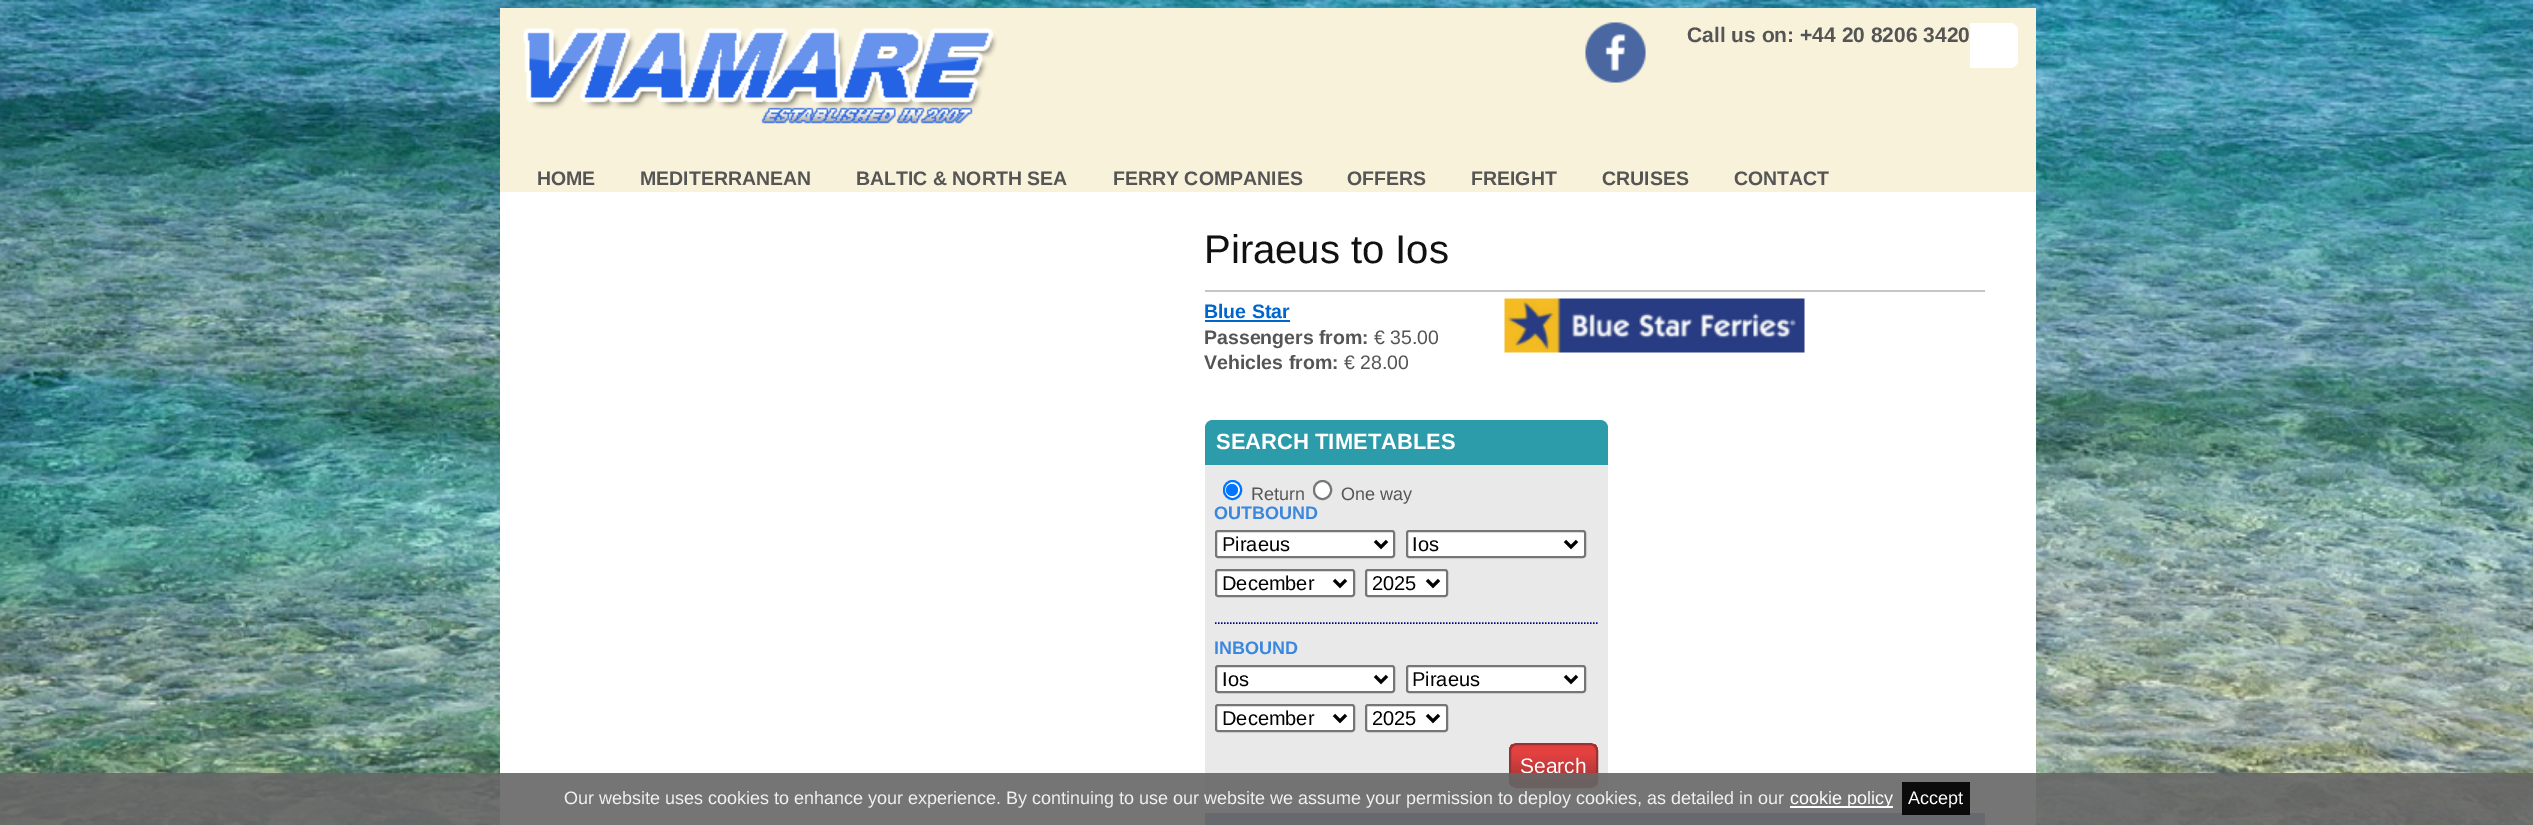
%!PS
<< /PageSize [2533 825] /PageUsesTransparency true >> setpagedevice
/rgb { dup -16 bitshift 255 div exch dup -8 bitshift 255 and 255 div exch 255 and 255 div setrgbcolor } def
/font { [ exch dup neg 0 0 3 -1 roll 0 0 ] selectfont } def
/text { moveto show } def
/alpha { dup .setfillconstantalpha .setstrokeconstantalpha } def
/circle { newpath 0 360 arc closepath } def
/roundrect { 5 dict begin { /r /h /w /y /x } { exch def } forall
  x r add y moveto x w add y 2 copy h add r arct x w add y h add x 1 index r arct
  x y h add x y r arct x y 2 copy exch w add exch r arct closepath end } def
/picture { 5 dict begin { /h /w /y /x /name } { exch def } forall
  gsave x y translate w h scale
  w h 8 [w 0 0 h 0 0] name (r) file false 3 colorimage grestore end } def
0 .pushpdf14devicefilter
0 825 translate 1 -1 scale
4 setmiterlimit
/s1 { /LiberationSans-Bold 21 font 16#555555 rgb } def
/s2 { /LiberationSans-Bold 19.5 font 16#555555 rgb } def
/s3 { /LiberationSans-Regular 40 font 16#111111 rgb } def
/s4 { /LiberationSans-Bold 19.5 font 16#0066CC rgb } def
/s5 { /LiberationSans-Regular 19.5 font 16#555555 rgb } def
/s6 { /LiberationSans-Bold 22 font 16#FFFFFF rgb } def
/s7 { /LiberationSans-Regular 18 font 16#555555 rgb } def
/s8 { /LiberationSans-Bold 18 font 16#3C87DE rgb } def
/s9 { /LiberationSans-Regular 20 font 16#000000 rgb } def
/s10 { /LiberationSans-Regular 21 font 16#FFFFFF rgb } def
/s11 { /LiberationSans-Regular 18 font 16#F1F1F1 rgb } def
/s12 { /LiberationSans-Regular 18 font 16#FFFFFF rgb } def
16#FFFFFF rgb
0 0 2533 825 rectfill
(pic1.raw) 0 0 2533 825 picture
500 192 1536 633 rectfill
16#F8F2DA rgb
500 8 1536 184 rectfill
(pic2.raw) 523 28 474 96 picture
(pic3.raw) 1585 22 61 61 picture
16#FFFFFF rgb
1688 23 330 45 8 roundrect fill
16#F8F2DA rgb
1688 23 282 45 rectfill
s1
(Call us on: +44 20 8206 3420) 1687 42 text
s2
(HOME) 537 185 text
(MEDITERRANEAN) 640 185 text
(BALTIC & NORTH SEA) 856 185 text
(FERRY COMPANIES) 1113 185 text
(OFFERS) 1347 185 text
(FREIGHT) 1471 185 text
(CRUISES) 1602 185 text
(CONTACT) 1734 185 text
s3
(Piraeus to Ios) 1204 263 text
16#C6C6C6 rgb
1205 290 780 2 rectfill
s4
(Blue Star) 1204 318 text
1205 320 85 2 rectfill
s2
(Passengers from:) 1204 344 text
s5
(€ 35.00) 1374 344 text
s2
(Vehicles from:) 1204 369 text
s5
(€ 28.00) 1344 369 text
(pic4.raw) 1504 298 301 55 picture
16#2D9CAA rgb
1213 420 moveto 1600 420 lineto 1604.5 420 1608 423.5 1608 428 curveto 1608 465 lineto 1205 465 lineto 1205 428 lineto 1205 423.5 1208.5 420 1213 420 curveto closepath fill
s6
(SEARCH TIMETABLES) 1216 449 text
16#E9E9E9 rgb
1205 465 moveto 1608 465 lineto 1608 787 lineto 1608 793 1603 798 1597 798 curveto 1216 798 lineto 1210 798 1205 793 1205 787 curveto closepath fill
16#FFFFFF rgb
1224 481 17 18 8.5 roundrect gsave fill grestore
16#0075FF rgb
2 setlinewidth
stroke
1232 490 6 circle fill
s7
(Return) 1251 500 text
16#FFFFFF rgb
1314 481 17 18 8.5 roundrect gsave fill grestore
16#767676 rgb
stroke
s7
(One way) 1341 500 text
s8
(OUTBOUND) 1214 519 text
16#FFFFFF rgb
1216 531 178 26 2 roundrect gsave fill grestore
16#767676 rgb
stroke
16#000000 rgb
3 setlinewidth
1375 541 moveto 1381 547 lineto 1387 541 lineto stroke
s9
(Piraeus) 1222 551 text
16#FFFFFF rgb
1407 531 178 26 2 roundrect gsave fill grestore
16#767676 rgb
2 setlinewidth
stroke
16#000000 rgb
3 setlinewidth
1565 541 moveto 1571 547 lineto 1577 541 lineto stroke
(Ios) 1412 551 text
16#FFFFFF rgb
1216 570 138 26 2 roundrect gsave fill grestore
16#767676 rgb
2 setlinewidth
stroke
16#000000 rgb
3 setlinewidth
1334 580 moveto 1340 586 lineto 1346 580 lineto stroke
(December) 1222 590 text
16#FFFFFF rgb
1366 570 81 26 2 roundrect gsave fill grestore
16#767676 rgb
2 setlinewidth
stroke
16#000000 rgb
3 setlinewidth
1427 580 moveto 1433 586 lineto 1439 580 lineto stroke
(2025) 1372 590 text
16#000080 rgb
1.5 setlinewidth
[1.5 1.5] 0 setdash
1215 623 moveto 1597.5 623 lineto stroke
s8
(INBOUND) 1214 654 text
16#FFFFFF rgb
1216 666 178 26 2 roundrect gsave fill grestore
16#767676 rgb
2 setlinewidth
[] 0 setdash
stroke
16#000000 rgb
3 setlinewidth
1375 676 moveto 1381 682 lineto 1387 676 lineto stroke
s9
(Ios) 1222 686 text
16#FFFFFF rgb
1407 666 178 26 2 roundrect gsave fill grestore
16#767676 rgb
2 setlinewidth
stroke
16#000000 rgb
3 setlinewidth
1565 676 moveto 1571 682 lineto 1577 676 lineto stroke
(Piraeus) 1412 686 text
16#FFFFFF rgb
1216 705 138 26 2 roundrect gsave fill grestore
16#767676 rgb
2 setlinewidth
stroke
16#000000 rgb
3 setlinewidth
1334 715 moveto 1340 721 lineto 1346 715 lineto stroke
(December) 1222 725 text
16#FFFFFF rgb
1366 705 81 26 2 roundrect gsave fill grestore
16#767676 rgb
2 setlinewidth
stroke
16#000000 rgb
3 setlinewidth
1427 715 moveto 1433 721 lineto 1439 715 lineto stroke
(2025) 1372 725 text
gsave
1509 743 89 45 8 roundrect clip newpath
gsave 1509 744 moveto 1598 744 lineto 1598 786 lineto 1509 786 lineto closepath clip newpath
<< /ShadingType 2 /ColorSpace /DeviceRGB /Coords [1553 744 1553 786] /Extend [true true] /Function << /FunctionType 3 /Domain [0 1] /Functions [<< /FunctionType 2 /Domain [0 1] /C0 [0.89 0.251 0.251] /C1 [0.89 0.251 0.251] /N 1 >> << /FunctionType 2 /Domain [0 1] /C0 [0.89 0.251 0.251] /C1 [0.6 0.2 0.2] /N 1 >>] /Bounds [0.25] /Encode [0 1 0 1] >> >> shfill grestore
grestore
16#993333 rgb
2 setlinewidth
1510 744 87 43 7 roundrect stroke
s10
(Search) 1520 773 text
16#6293B3 rgb
1205 813 780 12 rectfill
0.9 alpha
16#666666 rgb
0 773 2533 52 rectfill
1 alpha
s11
(Our website uses cookies to enhance your experience. By continuing to use our website we assume your permission to deploy cookies, as detailed in our) 564 804 text
16#FFFFFF rgb
1790 806 103 2 rectfill
(cookie policy) 1790 804 text
0.9 alpha
16#000000 rgb
1902 782 68 33 rectfill
1 alpha
s12
(Accept) 1908 804 text
.poppdf14devicefilter showpage
